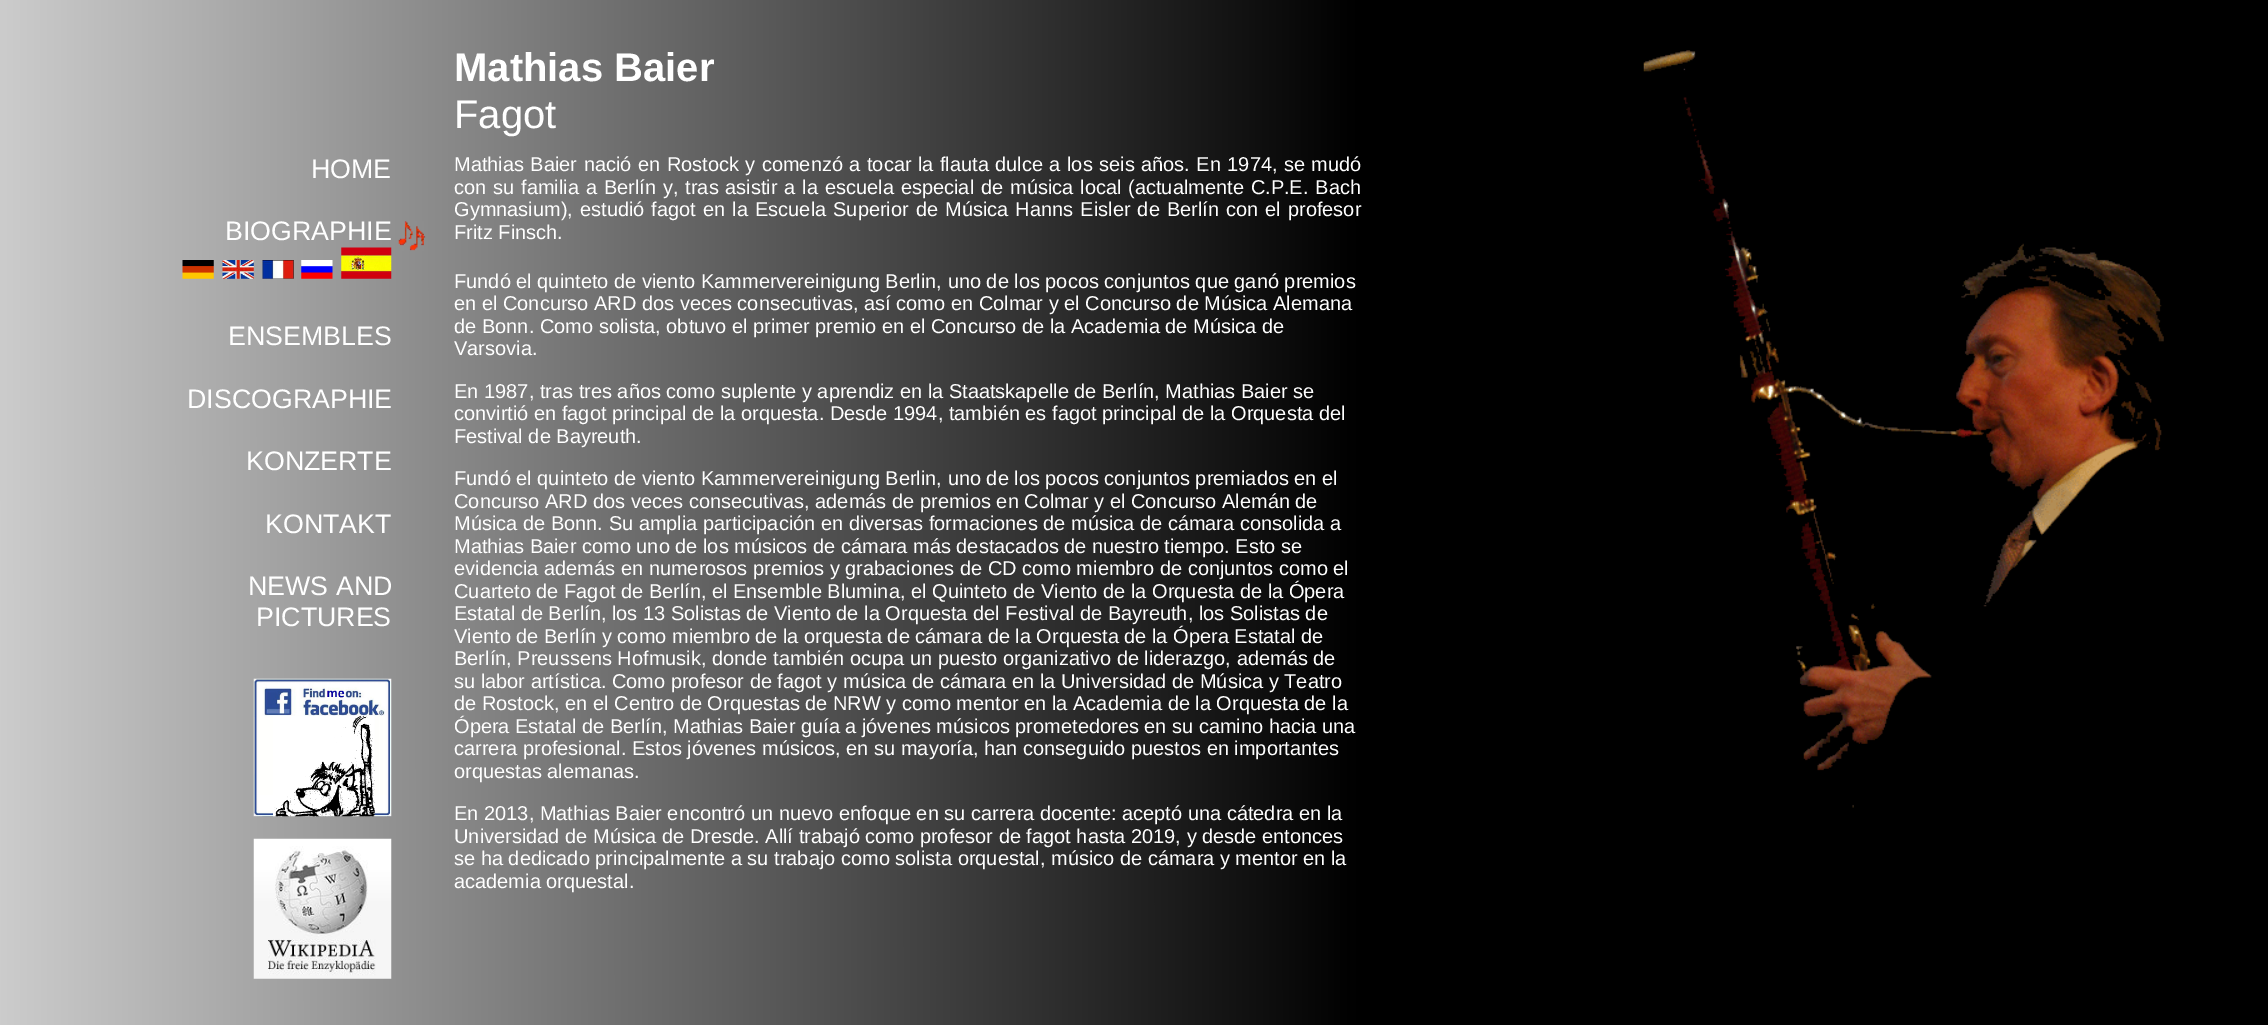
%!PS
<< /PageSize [2268 1025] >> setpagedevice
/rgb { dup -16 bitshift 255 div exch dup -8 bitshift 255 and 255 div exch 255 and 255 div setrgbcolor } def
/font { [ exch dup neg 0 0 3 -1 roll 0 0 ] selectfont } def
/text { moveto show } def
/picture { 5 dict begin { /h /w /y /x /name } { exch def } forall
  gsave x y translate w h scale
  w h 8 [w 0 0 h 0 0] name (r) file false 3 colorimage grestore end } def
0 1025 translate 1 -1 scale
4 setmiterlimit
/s1 { /LiberationSans-Regular 26.75 font 16#FFFFFF rgb } def
/s2 { /LiberationSans-Bold 40 font 16#FFFFFF rgb } def
/s3 { /LiberationSans-Regular 40 font 16#FFFFFF rgb } def
/s4 { /LiberationSans-Regular 20 font 16#FFFFFF rgb } def
16#FFFFFF rgb
0 0 2268 1025 rectfill
gsave 0 0 moveto 2268 0 lineto 2268 1025 lineto 0 1025 lineto closepath clip newpath
<< /ShadingType 2 /ColorSpace /DeviceRGB /Coords [0 513 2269 512] /Extend [true true] /Function << /FunctionType 3 /Domain [0 1] /Functions [<< /FunctionType 2 /Domain [0 1] /C0 [0.8 0.8 0.8] /C1 [0 0 0] /N 1 >> << /FunctionType 2 /Domain [0 1] /C0 [0 0 0] /C1 [0 0 0] /N 1 >>] /Bounds [0.6] /Encode [0 1 0 1] >> >> shfill grestore
s1
(HOME) 311 178 text
(BIOGRAPHIE) 225 240 text
(pic1.raw) 182 260 32 19 picture
(pic2.raw) 222 260 32 19 picture
(pic3.raw) 262 260 32 19 picture
(pic4.raw) 301 260 32 19 picture
(pic5.raw) 341 247 51 32 picture
(pic6.raw) 398 221 28 30 picture
(ENSEMBLES) 228 345 text
(DISCOGRAPHIE) 187 408 text
(KONZERTE) 246 470 text
(KONTAKT) 265 533 text
(NEWS AND) 248 595 text
(PICTURES) 256 626 text
(pic7.raw) 253 678 139 139 picture
(pic8.raw) 253 838 139 141 picture
s2
(Mathias Baier) 454 81 text
s3
(Fagot) 454 128 text
/LiberationSans-Regular 20 font
454 171 moveto 0.9 0 32 (Mathias Baier nació en Rostock y comenzó a tocar la flauta dulce a los seis años. En 1974, se mudó) widthshow
454 194 moveto 1.3 0 32 (con su familia a Berlín y, tras asistir a la escuela especial de música local \(actualmente C.P.E. Bach) widthshow
454 216 moveto 1.5 0 32 (Gymnasium\), estudió fagot en la Escuela Superior de Música Hanns Eisler de Berlín con el profesor) widthshow
(Fritz Finsch.) 454 239 text
(Fundó el quinteto de viento Kammervereinigung Berlin, uno de los pocos conjuntos que ganó premios) 454 288 text
(en el Concurso ARD dos veces consecutivas, así como en Colmar y el Concurso de Música Alemana) 454 310 text
(de Bonn. Como solista, obtuvo el primer premio en el Concurso de la Academia de Música de) 454 333 text
(Varsovia.) 454 355 text
(En 1987, tras tres años como suplente y aprendiz en la Staatskapelle de Berlín, Mathias Baier se) 454 398 text
(convirtió en fagot principal de la orquesta. Desde 1994, también es fagot principal de la Orquesta del) 454 420 text
(Festival de Bayreuth.) 454 443 text
(Fundó el quinteto de viento Kammervereinigung Berlin, uno de los pocos conjuntos premiados en el) 454 485 text
(Concurso ARD dos veces consecutivas, además de premios en Colmar y el Concurso Alemán de) 454 508 text
(Música de Bonn. Su amplia participación en diversas formaciones de música de cámara consolida a) 454 530 text
(Mathias Baier como uno de los músicos de cámara más destacados de nuestro tiempo. Esto se) 454 553 text
(evidencia además en numerosos premios y grabaciones de CD como miembro de conjuntos como el) 454 575 text
(Cuarteto de Fagot de Berlín, el Ensemble Blumina, el Quinteto de Viento de la Orquesta de la Ópera) 454 598 text
(Estatal de Berlín, los 13 Solistas de Viento de la Orquesta del Festival de Bayreuth, los Solistas de) 454 620 text
(Viento de Berlín y como miembro de la orquesta de cámara de la Orquesta de la Ópera Estatal de) 454 643 text
(Berlín, Preussens Hofmusik, donde también ocupa un puesto organizativo de liderazgo, además de) 454 665 text
(su labor artística. Como profesor de fagot y música de cámara en la Universidad de Música y Teatro) 454 688 text
(de Rostock, en el Centro de Orquestas de NRW y como mentor en la Academia de la Orquesta de la) 454 710 text
(Ópera Estatal de Berlín, Mathias Baier guía a jóvenes músicos prometedores en su camino hacia una) 454 733 text
(carrera profesional. Estos jóvenes músicos, en su mayoría, han conseguido puestos en importantes) 454 755 text
(orquestas alemanas.) 454 778 text
(En 2013, Mathias Baier encontró un nuevo enfoque en su carrera docente: aceptó una cátedra en la) 454 820 text
(Universidad de Música de Dresde. Allí trabajó como profesor de fagot hasta 2019, y desde entonces) 454 843 text
(se ha dedicado principalmente a su trabajo como solista orquestal, músico de cámara y mentor en la) 454 865 text
(academia orquestal.) 454 888 text
(pic9.raw) 1643 50 521 758 picture
showpage
